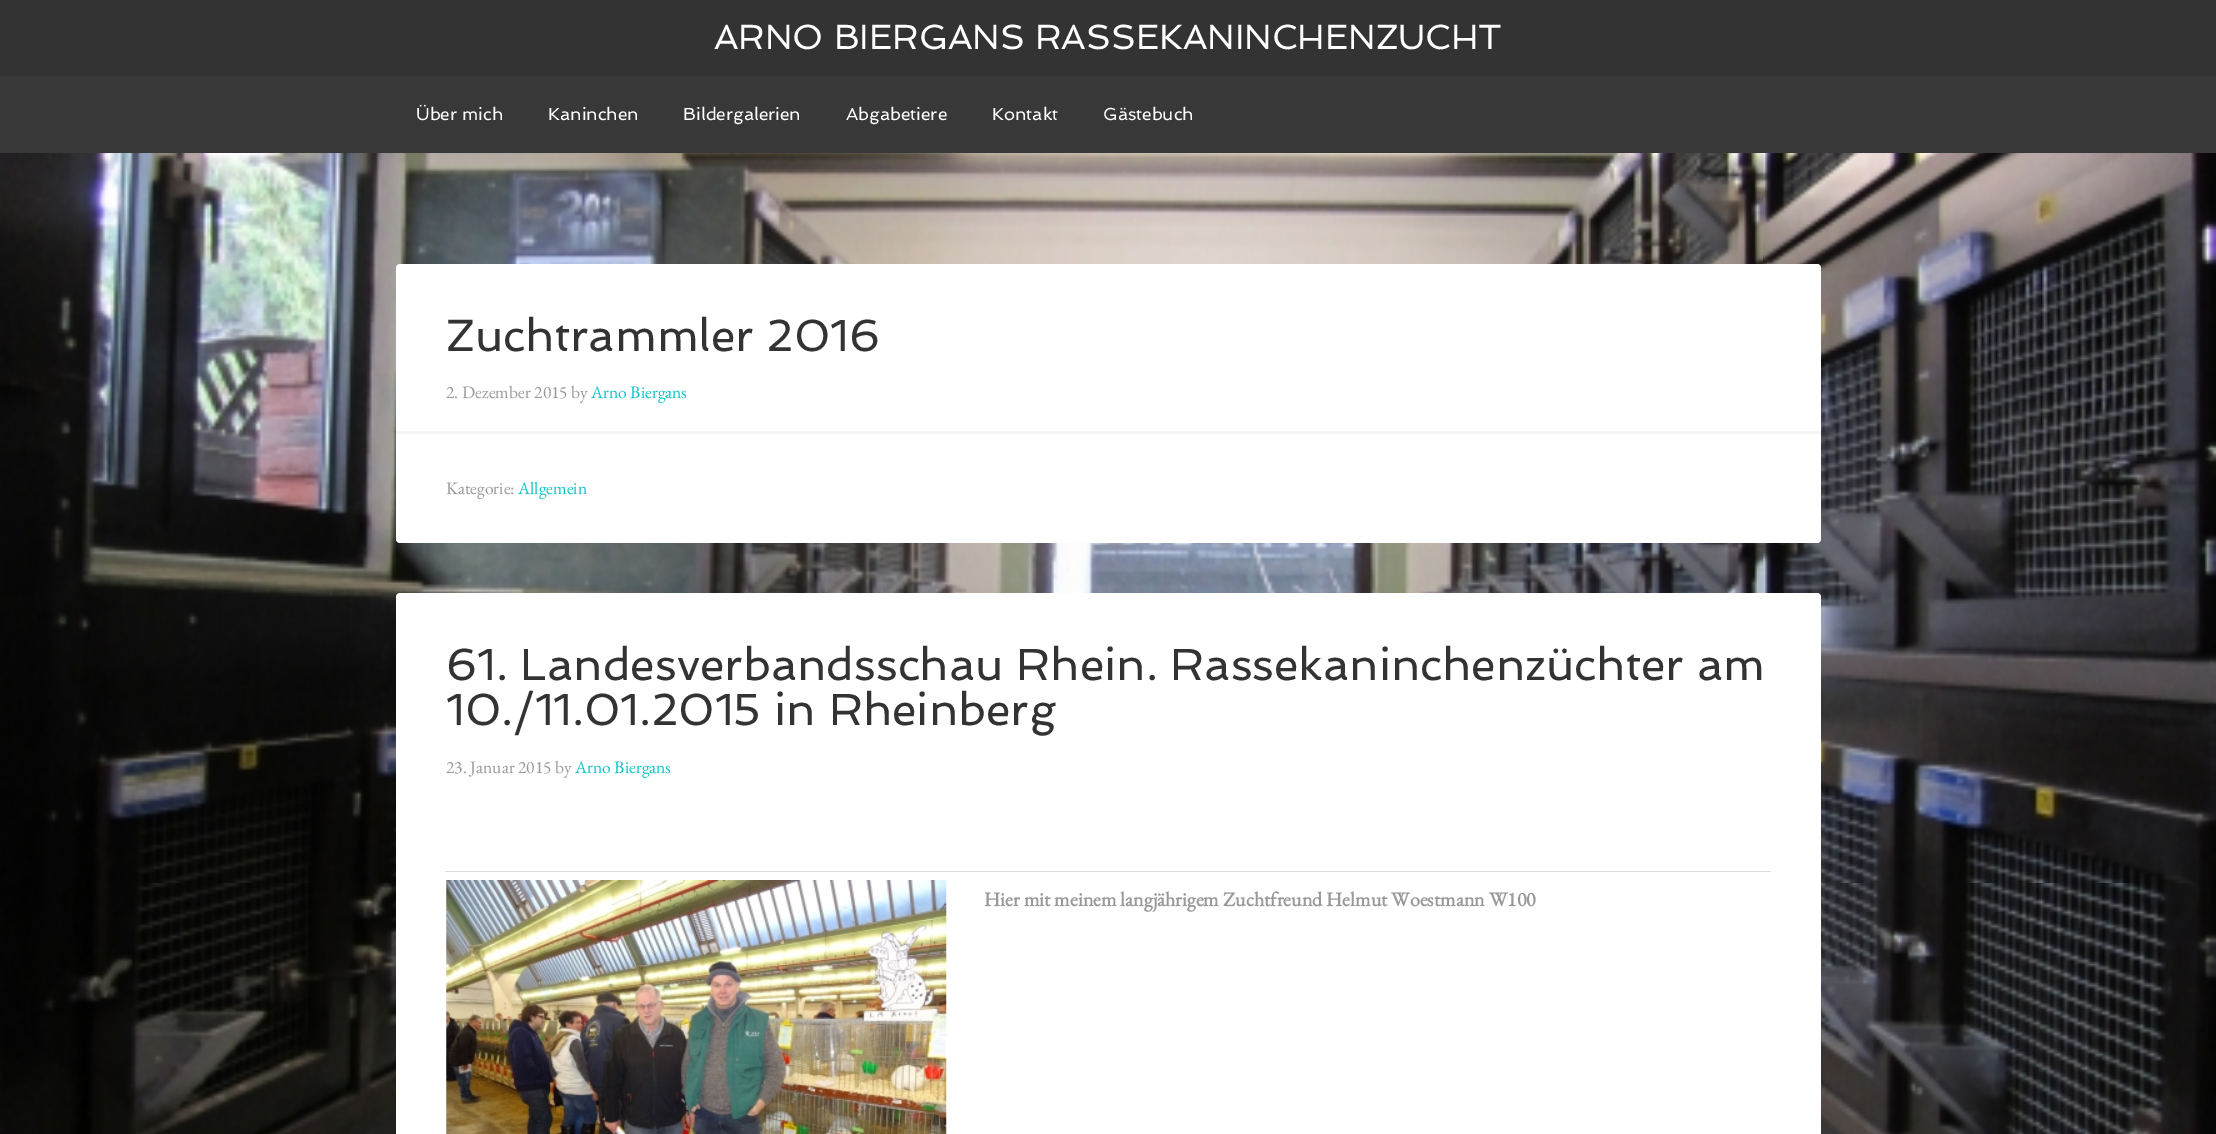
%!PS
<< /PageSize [2216 1134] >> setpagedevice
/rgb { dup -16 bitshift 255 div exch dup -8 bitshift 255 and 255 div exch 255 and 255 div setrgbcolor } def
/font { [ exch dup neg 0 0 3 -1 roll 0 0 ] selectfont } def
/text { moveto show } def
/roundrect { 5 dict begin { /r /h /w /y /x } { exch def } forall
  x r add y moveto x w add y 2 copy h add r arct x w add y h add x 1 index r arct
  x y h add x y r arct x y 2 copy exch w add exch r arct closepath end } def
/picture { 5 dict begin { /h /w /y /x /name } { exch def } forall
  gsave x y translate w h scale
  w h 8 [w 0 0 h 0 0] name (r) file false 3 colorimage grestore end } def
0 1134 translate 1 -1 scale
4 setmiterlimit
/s1 { /Spinnaker-Regular 35 font 16#FFFFFF rgb } def
/s2 { /Spinnaker-Regular 17.5 font 16#FFFFFF rgb } def
/s3 { /Spinnaker-Regular 45 font 16#333333 rgb } def
/s4 { /EBGaramond-Regular 17.5 font 16#999999 rgb } def
/s5 { /EBGaramond-Regular 17.5 font 16#0CC4C6 rgb } def
/s6 { /EBGaramond-Bold 20 font 16#999999 rgb } def
16#FFFFFF rgb
0 0 2216 1134 rectfill
16#333333 rgb
0 0 2216 76 rectfill
s1
(ARNO BIERGANS RASSEKANINCHENZUCHT) 714 49 text
16#383838 rgb
0 76 2216 77 rectfill
s2
(Über mich) 416 120 text
(Kaninchen) 548 120 text
(Bildergalerien) 683 120 text
(Abgabetiere) 846 120 text
(Kontakt) 992 120 text
(Gästebuch) 1103 120 text
(pic2.raw) 0 153 2216 981 picture
396 264 1425 279 4 roundrect fill
s3
(Zuchtrammler 2016) 446 351 text
s4
(2. Dezember 2015 by) 446 398 text
s5
(Arno Biergans) 591 398 text
16#F5F5F5 rgb
396 431 1425 3 rectfill
s4
(Kategorie:) 446 494 text
s5
(Allgemein) 518 494 text
16#FFFFFF rgb
396 593 1425 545 4 roundrect fill
s3
(61. Landesverbandsschau Rhein. Rassekaninchenzüchter am) 446 680 text
(10./11.01.2015 in Rheinberg) 446 725 text
s4
(23. Januar 2015 by) 446 773 text
s5
(Arno Biergans) 575 773 text
16#DDDDDD rgb
445 871 1326 1 rectfill
(pic1.raw) 446 880 501 254 picture
s6
(Hier mit meinem langjährigem Zuchtfreund Helmut Woestmann W100) 984 906 text
showpage
